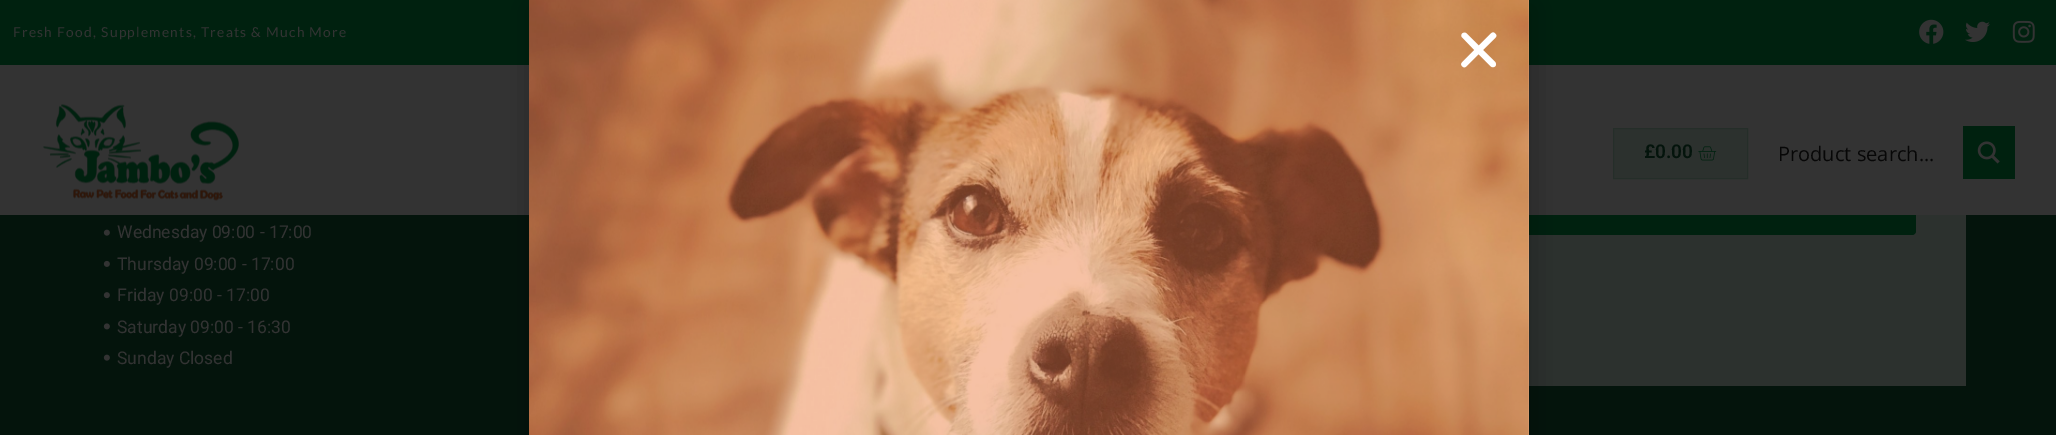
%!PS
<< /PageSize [2056 435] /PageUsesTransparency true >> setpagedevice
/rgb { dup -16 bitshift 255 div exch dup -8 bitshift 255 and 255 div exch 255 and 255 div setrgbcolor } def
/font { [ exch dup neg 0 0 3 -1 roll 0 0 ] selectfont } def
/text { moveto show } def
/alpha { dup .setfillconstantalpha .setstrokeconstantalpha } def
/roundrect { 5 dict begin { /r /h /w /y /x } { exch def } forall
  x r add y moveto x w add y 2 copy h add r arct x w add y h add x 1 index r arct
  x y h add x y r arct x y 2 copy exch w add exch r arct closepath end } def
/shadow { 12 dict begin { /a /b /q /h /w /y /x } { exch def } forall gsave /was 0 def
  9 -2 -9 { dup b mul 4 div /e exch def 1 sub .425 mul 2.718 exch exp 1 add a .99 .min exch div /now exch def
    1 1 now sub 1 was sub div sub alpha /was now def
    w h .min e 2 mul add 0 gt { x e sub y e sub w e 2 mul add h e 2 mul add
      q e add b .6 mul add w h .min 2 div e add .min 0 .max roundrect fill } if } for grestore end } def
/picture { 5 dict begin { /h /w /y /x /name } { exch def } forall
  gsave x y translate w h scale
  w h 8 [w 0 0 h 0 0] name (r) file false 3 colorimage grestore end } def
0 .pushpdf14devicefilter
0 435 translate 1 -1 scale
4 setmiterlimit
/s1 { /Roboto-SemiBold 19 font 16#04140C rgb } def
/s2 { /OpenSans-Regular 20 font 16#070707 rgb } def
/s3 { /Roboto-Regular 17.5 font 16#333333 rgb } def
16#04140C rgb
0 0 2056 435 rectfill
16#2C312E rgb
1528 215 438 171 rectfill
16#00210F rgb
1405 185 511 50 4 roundrect fill
16#333333 rgb
0 65 2056 150 rectfill
16#00210F rgb
0 0 2056 65 rectfill
16#000000 rgb
528 6 1007 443 0 14.5 0.2 shadow
(pic1.raw) 529 0 1000 435 picture
0.42 alpha
16#EC6D29 rgb
529 0 1000 435 rectfill
1 alpha
(pic2.raw) 1461 32 36 36 picture
/Lato-Regular 13.75 font
16#333333 rgb
13 37 moveto 1.25 0 (Fresh Food, Supplements, Treats & Much More) ashow
(pic3.raw) 1919 19 25 25 picture
(pic4.raw) 1965 21 25 21 picture
(pic5.raw) 2012 20 23 23 picture
(pic6.raw) 43 104 196 97 picture
16#2C312E rgb
1613.5 128.5 moveto 1747.5 128.5 lineto 1747.5 178.5 lineto 1613.5 178.5 lineto closepath gsave fill grestore
16#252E29 rgb
stroke
s1
(£0.00) 1644 158 text
(pic7.raw) 1698 146 19 15 picture
s2
(Product search...) 1778 161 text
16#00210F rgb
1963 126 52 53 rectfill
(pic8.raw) 1977 141 23 23 picture
(pic9.raw) 103 229 7 7 picture
s3
(Wednesday 09:00 - 17:00) 117 238 text
(pic10.raw) 103 260 7 7 picture
(Thursday 09:00 - 17:00) 117 270 text
(pic11.raw) 103 292 7 7 picture
(Friday 09:00 - 17:00) 117 301 text
(pic12.raw) 103 323 7 7 picture
(Saturday 09:00 - 16:30) 117 333 text
(pic9.raw) 103 354 7 7 picture
(Sunday Closed) 117 364 text
.poppdf14devicefilter showpage
